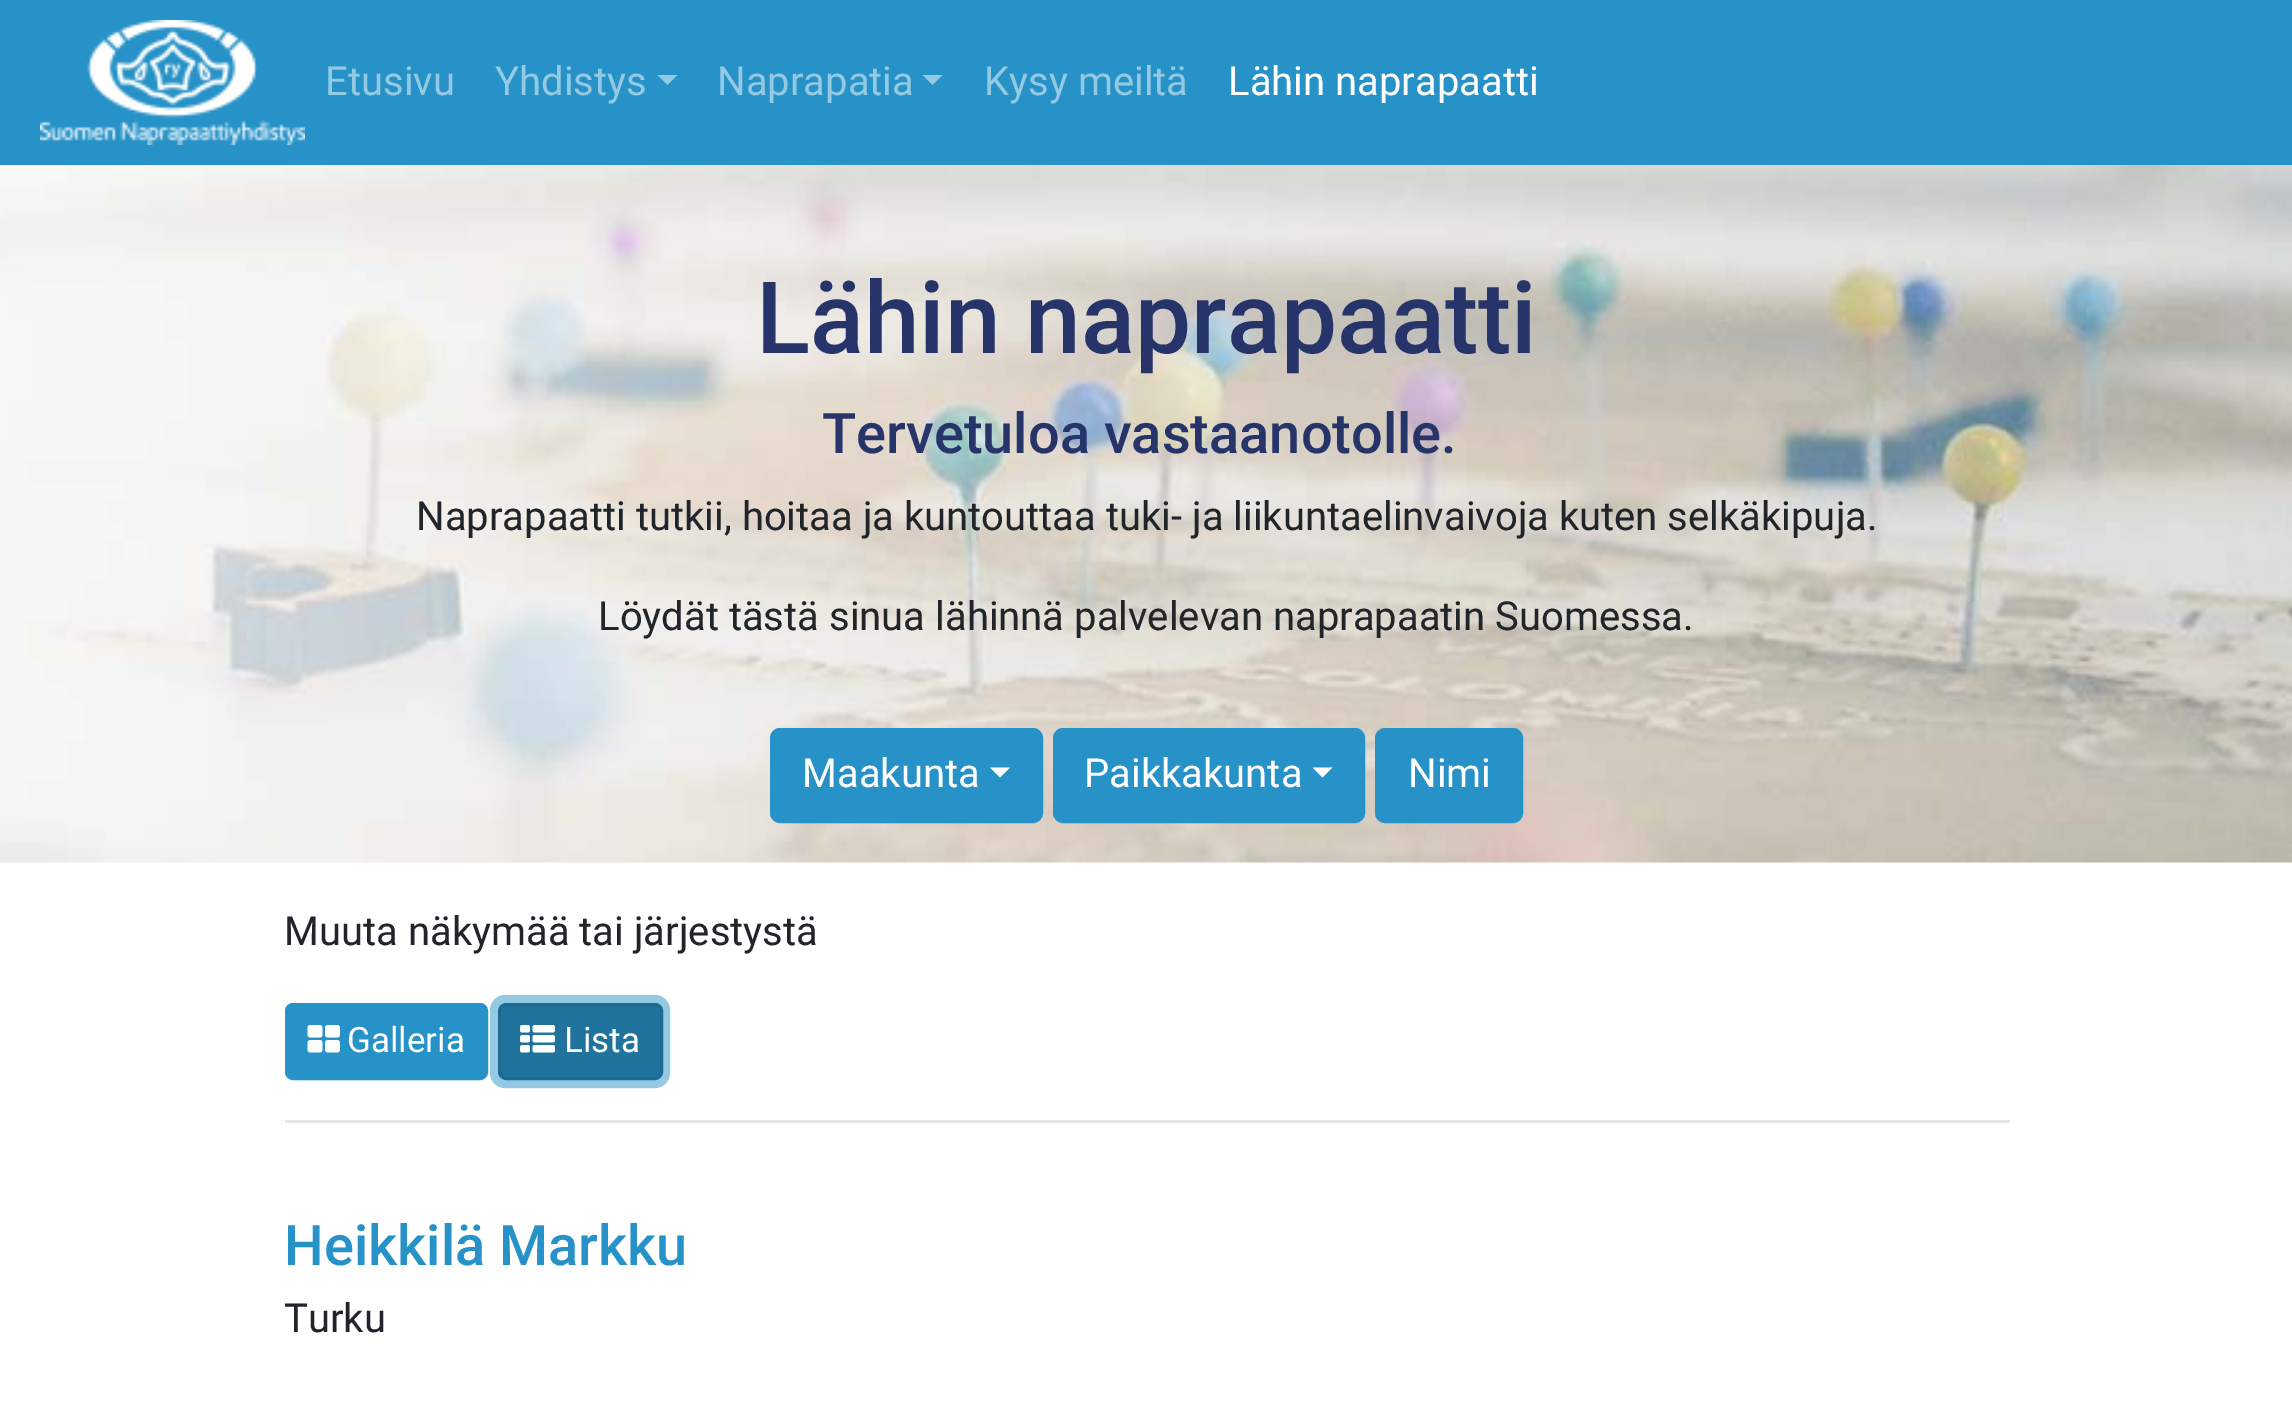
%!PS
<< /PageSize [2292 1421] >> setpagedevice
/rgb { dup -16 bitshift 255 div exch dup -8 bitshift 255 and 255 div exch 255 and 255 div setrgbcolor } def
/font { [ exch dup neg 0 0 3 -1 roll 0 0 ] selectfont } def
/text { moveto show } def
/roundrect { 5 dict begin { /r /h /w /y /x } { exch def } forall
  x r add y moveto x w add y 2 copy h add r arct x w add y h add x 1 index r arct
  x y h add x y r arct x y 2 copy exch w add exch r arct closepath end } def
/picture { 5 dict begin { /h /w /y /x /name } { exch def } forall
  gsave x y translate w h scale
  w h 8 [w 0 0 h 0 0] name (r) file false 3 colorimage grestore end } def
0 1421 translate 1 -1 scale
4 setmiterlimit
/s1 { /Roboto-Regular 40 font 16#93C9E3 rgb } def
/s2 { /Roboto-Regular 40 font 16#FFFFFF rgb } def
/s3 { /Roboto-Medium 100 font 16#273469 rgb } def
/s4 { /Roboto-Medium 56 font 16#273469 rgb } def
/s5 { /Roboto-Regular 40 font 16#212529 rgb } def
/s6 { /Roboto-Regular 35 font 16#FFFFFF rgb } def
/s7 { /Roboto-Medium 56 font 16#2792C7 rgb } def
16#FFFFFF rgb
0 0 2292 1421 rectfill
16#2792C7 rgb
0 0 2292 165 rectfill
(pic1.raw) 40 20 265 125 picture
s1
(Etusivu) 325 95 text
(Yhdistys) 495 95 text
657.5 75 moveto 677.5 75 lineto 667.5 85 lineto closepath fill
(Naprapatia) 717 95 text
922.5 75 moveto 942.5 75 lineto 932.5 85 lineto closepath fill
(Kysy meiltä) 984 95 text
s2
(Lähin naprapaatti) 1228 95 text
(pic2.raw) 0 165 2292 698 picture
s3
(Lähin naprapaatti) 756 353 text
s4
(Tervetuloa vastaanotolle.) 822 453 text
s5
(Naprapaatti tutkii, hoitaa ja kuntouttaa tuki- ja liikuntaelinvaivoja kuten selkäkipuja.) 416 530 text
(Löydät tästä sinua lähinnä palvelevan naprapaatin Suomessa.) 598 630 text
16#2792C7 rgb
771.5 729.5 270 92 8.5 roundrect gsave fill grestore
3 setlinewidth
stroke
s2
(Maakunta) 802 787 text
990 767.5 moveto 1010 767.5 lineto 1000 777.5 lineto closepath fill
16#2792C7 rgb
1054.5 729.5 309 92 8.5 roundrect gsave fill grestore
stroke
s2
(Paikkakunta) 1084 787 text
1312.5 767.5 moveto 1332.5 767.5 lineto 1322.5 777.5 lineto closepath fill
16#2792C7 rgb
1376.5 729.5 145 92 8.5 roundrect gsave fill grestore
stroke
s2
(Nimi) 1408 787 text
s5
(Muuta näkymää tai järjestystä) 284 945 text
16#2792C7 rgb
286.5 1004.5 200 74 6.5 roundrect gsave fill grestore
stroke
(pic3.raw) 307 1025 33 28 picture
s6
(Galleria) 347 1052 text
16#93C9E3 rgb
8 setlinewidth
494 999 172 85 11 roundrect stroke
16#1F739C rgb
499.5 1004.5 162 74 6.5 roundrect gsave fill grestore
16#1D6B92 rgb
3 setlinewidth
stroke
(pic4.raw) 520 1025 35 28 picture
s6
(Lista) 564 1052 text
16#E6E6E6 rgb
285 1120 1725 3 rectfill
s7
(Heikkilä Markku) 284 1265 text
s5
(Turku) 284 1332 text
showpage
